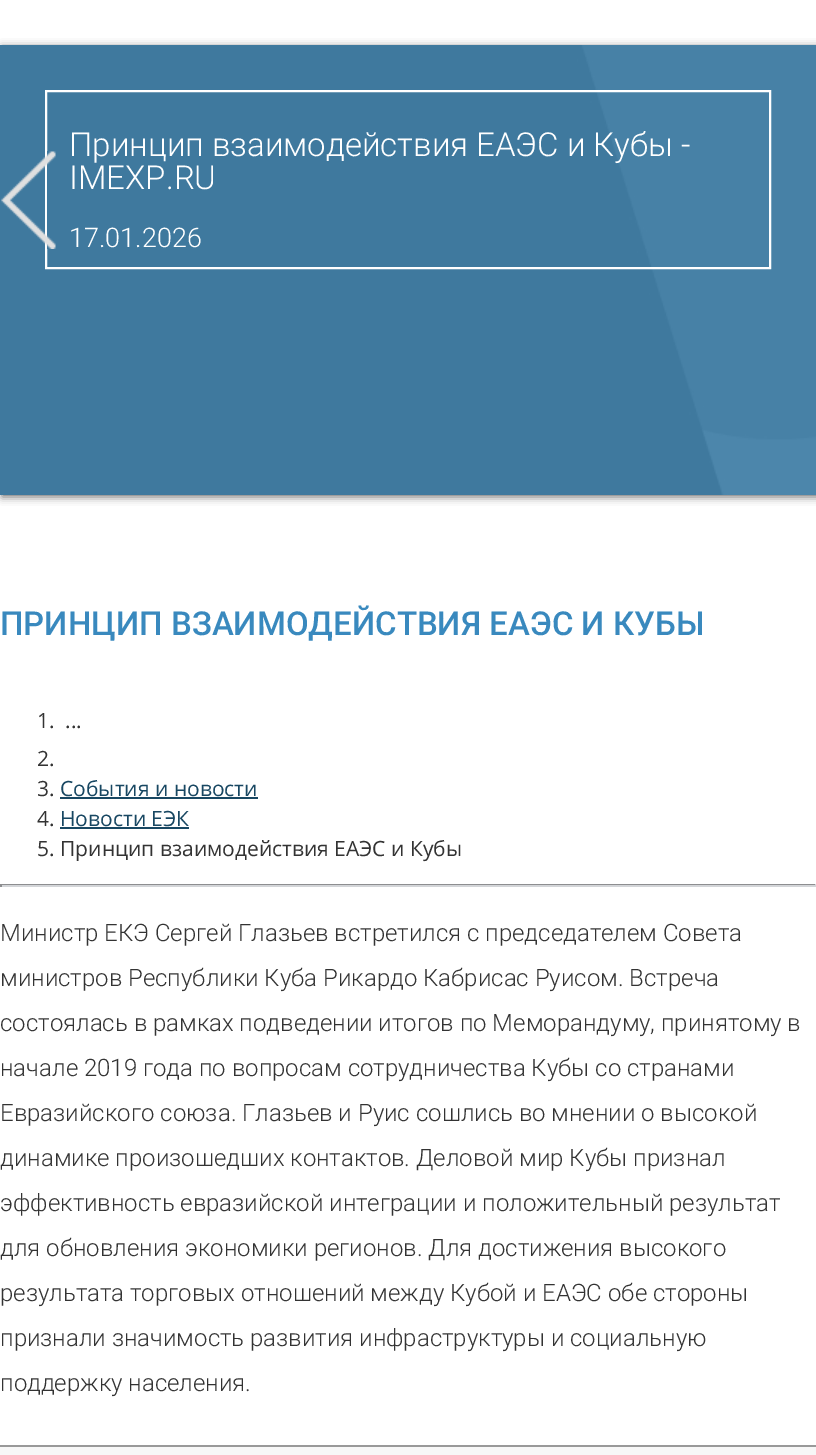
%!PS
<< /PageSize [816 1455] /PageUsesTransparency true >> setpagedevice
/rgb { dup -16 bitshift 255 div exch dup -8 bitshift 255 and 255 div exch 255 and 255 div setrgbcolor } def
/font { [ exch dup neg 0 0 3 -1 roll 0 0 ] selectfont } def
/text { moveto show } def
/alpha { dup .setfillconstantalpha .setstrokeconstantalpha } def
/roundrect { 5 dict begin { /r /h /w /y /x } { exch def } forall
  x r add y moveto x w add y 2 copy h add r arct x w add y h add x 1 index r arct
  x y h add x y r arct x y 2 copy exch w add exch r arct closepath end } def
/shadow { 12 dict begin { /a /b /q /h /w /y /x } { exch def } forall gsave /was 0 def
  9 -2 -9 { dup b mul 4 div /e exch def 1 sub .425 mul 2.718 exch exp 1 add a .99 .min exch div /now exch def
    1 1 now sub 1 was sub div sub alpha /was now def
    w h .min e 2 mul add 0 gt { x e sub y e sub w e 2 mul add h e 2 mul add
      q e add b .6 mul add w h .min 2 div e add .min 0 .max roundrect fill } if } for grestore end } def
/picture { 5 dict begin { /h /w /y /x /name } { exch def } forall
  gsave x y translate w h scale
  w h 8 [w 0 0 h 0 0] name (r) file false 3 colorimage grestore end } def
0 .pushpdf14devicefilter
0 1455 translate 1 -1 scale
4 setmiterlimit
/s1 { /Roboto-Light 33 font 16#FFFFFF rgb } def
/s2 { /Roboto-Light 27 font 16#FFFFFF rgb } def
/s3 { /Roboto-Medium 33 font 16#3989BE rgb } def
/s4 { /OpenSans-Regular 21 font 16#333333 rgb } def
/s5 { /OpenSans-Regular 21 font 16#184762 rgb } def
/s6 { /Roboto-Light 24 font 16#333333 rgb } def
16#FFFFFF rgb
0 0 816 1455 rectfill
16#000000 rgb
2 47 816 450 0 4 0.55 shadow
(pic1.raw) 0 45 816 450 picture
16#FFFFFF rgb
2 setlinewidth
46 91 724 177 rectstroke
(pic2.raw) 1 151 55 98 picture
s1
(Принцип взаимодействия ЕАЭС и Кубы -) 69 156 text
(IMEXP.RU) 69 189 text
s2
(17.01.2026) 69 247 text
s3
(ПРИНЦИП ВЗАИМОДЕЙСТВИЯ ЕАЭС И КУБЫ) 0 635 text
s4
(1.) 37 728 text
(...) 65 728 text
(2.) 37 766 text
(3.) 37 796 text
s5
(События и новости) 60 796 text
60 797 198 2 rectfill
s4
(4.) 37 826 text
s5
(Новости ЕЭК) 60 826 text
60 827 129 2 rectfill
s4
(5. Принцип взаимодействия ЕАЭС и Кубы) 37 856 text
16#8D8E90 rgb
0 884 816 1 rectfill
16#D3D5D8 rgb
815 884 1 3 rectfill
0 885 816 2 rectfill
16#8D8E90 rgb
0 884 2 3 rectfill
s6
(Министр ЕКЭ Сергей Глазьев встретился с председателем Совета) 0 941 text
(министров Республики Куба Рикардо Кабрисас Руисом. Встреча) 0 986 text
(состоялась в рамках подведении итогов по Меморандуму, принятому в) 0 1031 text
(начале 2019 года по вопросам сотрудничества Кубы со странами) 0 1076 text
(Евразийского союза. Глазьев и Руис сошлись во мнении о высокой) 0 1121 text
(динамике произошедших контактов. Деловой мир Кубы признал) 0 1166 text
(эффективность евразийской интеграции и положительный результат) 0 1211 text
(для обновления экономики регионов. Для достижения высокого) 0 1256 text
(результата торговых отношений между Кубой и ЕАЭС обе стороны) 0 1301 text
(признали значимость развития инфраструктуры и социальную) 0 1346 text
(поддержку населения.) 0 1391 text
16#F7F7F7 rgb
0 1447 816 8 rectfill
16#999999 rgb
0 1445 816 2 rectfill
.poppdf14devicefilter showpage
